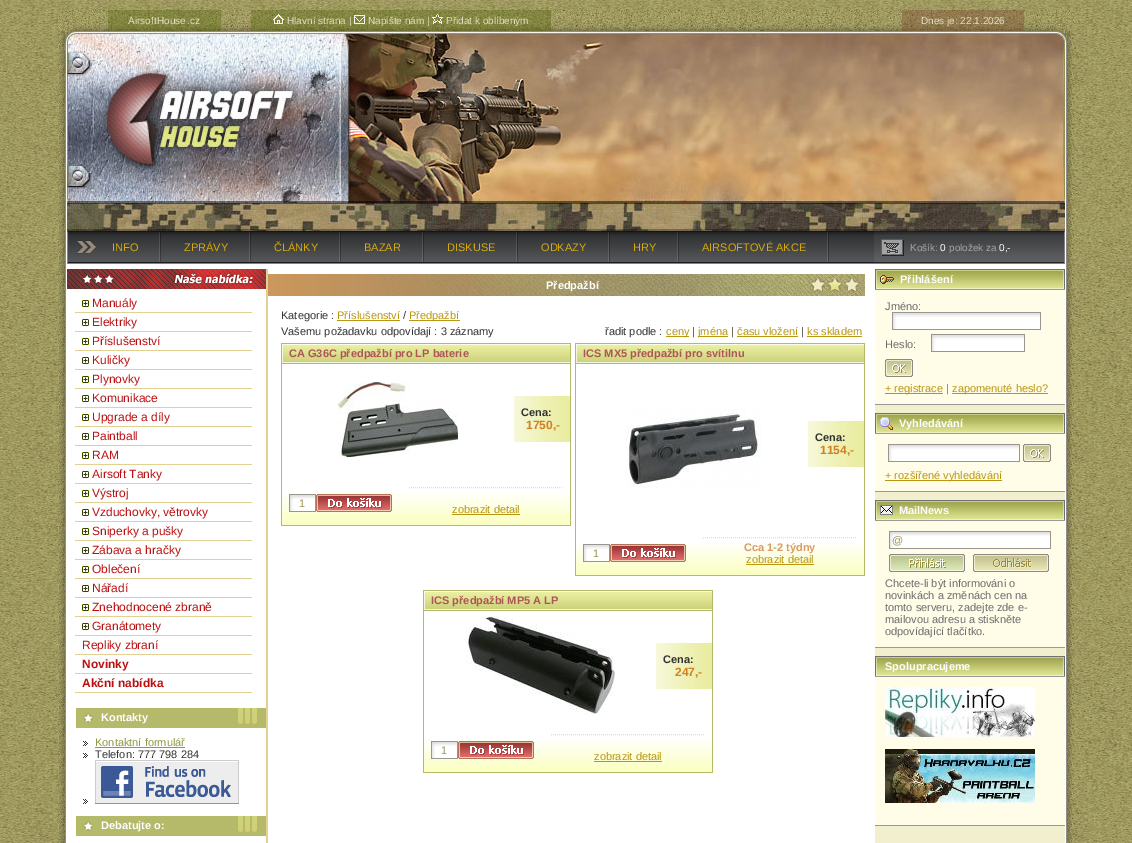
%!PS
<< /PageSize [1132 843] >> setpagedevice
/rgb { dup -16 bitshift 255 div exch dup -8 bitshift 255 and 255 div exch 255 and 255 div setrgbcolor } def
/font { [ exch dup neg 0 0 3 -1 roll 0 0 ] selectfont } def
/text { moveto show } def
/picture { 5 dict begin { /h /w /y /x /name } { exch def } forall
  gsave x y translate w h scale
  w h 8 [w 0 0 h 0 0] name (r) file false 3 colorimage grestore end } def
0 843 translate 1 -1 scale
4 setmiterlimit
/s1 { /LiberationSans-Regular 10 font 16#E1DFC3 rgb } def
/s2 { /LiberationSans-Regular 11 font 16#D7AB0D rgb } def
/s3 { /LiberationSans-Regular 10 font 16#A5A5A6 rgb } def
/s4 { /LiberationSans-Regular 10 font 16#FFFFFF rgb } def
/s5 { /LiberationSans-Regular 12 font 16#BB1010 rgb } def
/s6 { /LiberationSans-Bold 12 font 16#BB1010 rgb } def
/s7 { /LiberationSans-Bold 11 font 16#FFFFFF rgb } def
/s8 { /LiberationSans-Regular 11 font 16#929742 rgb } def
/s9 { /LiberationSans-Regular 11 font 16#333333 rgb } def
/s10 { /LiberationSans-Regular 11 font 16#BB9610 rgb } def
/s11 { /LiberationSans-Bold 11 font 16#AE5555 rgb } def
/s12 { /LiberationSans-Bold 11 font 16#333333 rgb } def
/s13 { /LiberationSans-Bold 12 font 16#D18022 rgb } def
/s14 { /LiberationSans-Regular 11 font 16#9B9659 rgb } def
/s15 { /LiberationSans-Bold 11 font 16#DB9964 rgb } def
/s16 { /LiberationSans-Regular 11 font 16#6C6C6C rgb } def
16#FFFFFF rgb
0 0 1132 843 rectfill
(pic1.raw) 0 0 1132 843 picture
(pic2.raw) 58 31 1016 812 picture
(pic3.raw) 58 10 1016 21 picture
(pic4.raw) 108 10 113 21 picture
/LiberationSans-Regular 10 font
16#E1DFC3 rgb
128 24 moveto -2 0 32 (Airsoft House . cz) widthshow
(pic5.raw) 251 10 300 21 picture
(pic6.raw) 273 14 11 10 picture
(Hlavní strana |) 287 24 text
(pic7.raw) 354 15 11 9 picture
(Napište nám |) 368 24 text
(pic8.raw) 432 14 11 10 picture
(Přidat k oblíbeným) 446 24 text
(pic9.raw) 902 10 122 21 picture
(Dnes je: 22.1.2026) 921 24 text
(pic10.raw) 65 31 1002 200 picture
(pic11.raw) 101 69 197 101 picture
(pic12.raw) 67 231 807 33 picture
(pic13.raw) 159 232 2 30 picture
s2
(INFO) 112 251 text
(pic13.raw) 249 232 2 30 picture
(ZPRÁVY) 184 251 text
(pic13.raw) 339 232 2 30 picture
(ČLÁNKY) 274 251 text
(pic13.raw) 422 232 2 30 picture
(BAZAR) 364 251 text
(pic13.raw) 516 232 2 30 picture
(DISKUSE) 447 251 text
(pic13.raw) 608 232 2 30 picture
(ODKAZY) 541 251 text
(pic13.raw) 677 232 2 30 picture
(HRY) 633 251 text
(pic13.raw) 827 232 2 30 picture
(AIRSOFTOVÉ AKCE) 702 251 text
(pic14.raw) 874 231 191 33 picture
(pic15.raw) 881 239 23 17 picture
s3
(Košík:) 910 251 text
s4
(0) 940 251 text
s3
(položek za) 949 251 text
s4
(0,-) 999 251 text
266 264 799 5 rectfill
(pic16.raw) 67 269 199 20 picture
16#E2D193 rgb
75 312 177 1 rectfill
(pic17.raw) 82 300 7 7 picture
s5
(Manuály) 92 307 text
16#E2D193 rgb
75 331 177 1 rectfill
(pic17.raw) 82 319 7 7 picture
s5
(Elektriky) 92 326 text
16#E2D193 rgb
75 350 177 1 rectfill
(pic17.raw) 82 338 7 7 picture
s5
(Příslušenství) 92 345 text
16#E2D193 rgb
75 369 177 1 rectfill
(pic17.raw) 82 357 7 7 picture
s5
(Kuličky) 92 364 text
16#E2D193 rgb
75 388 177 1 rectfill
(pic17.raw) 82 376 7 7 picture
s5
(Plynovky) 92 383 text
16#E2D193 rgb
75 407 177 1 rectfill
(pic17.raw) 82 395 7 7 picture
s5
(Komunikace) 92 402 text
16#E2D193 rgb
75 426 177 1 rectfill
(pic17.raw) 82 414 7 7 picture
s5
(Upgrade a díly) 92 421 text
16#E2D193 rgb
75 445 177 1 rectfill
(pic17.raw) 82 433 7 7 picture
s5
(Paintball) 92 440 text
16#E2D193 rgb
75 464 177 1 rectfill
(pic17.raw) 82 452 7 7 picture
s5
(RAM) 92 459 text
16#E2D193 rgb
75 483 177 1 rectfill
(pic17.raw) 82 471 7 7 picture
s5
(Airsoft Tanky) 92 478 text
16#E2D193 rgb
75 502 177 1 rectfill
(pic17.raw) 82 490 7 7 picture
s5
(Výstroj) 92 497 text
16#E2D193 rgb
75 521 177 1 rectfill
(pic17.raw) 82 509 7 7 picture
s5
(Vzduchovky, větrovky) 92 516 text
16#E2D193 rgb
75 540 177 1 rectfill
(pic17.raw) 82 528 7 7 picture
s5
(Sniperky a pušky) 92 535 text
16#E2D193 rgb
75 559 177 1 rectfill
(pic17.raw) 82 547 7 7 picture
s5
(Zábava a hračky) 92 554 text
16#E2D193 rgb
75 578 177 1 rectfill
(pic17.raw) 82 566 7 7 picture
s5
(Oblečení) 92 573 text
16#E2D193 rgb
75 597 177 1 rectfill
(pic17.raw) 82 585 7 7 picture
s5
(Nářadí) 92 592 text
16#E2D193 rgb
75 616 177 1 rectfill
(pic17.raw) 82 604 7 7 picture
s5
(Znehodnocené zbraně) 92 611 text
16#E2D193 rgb
75 635 177 1 rectfill
(pic17.raw) 82 623 7 7 picture
s5
(Granátomety) 92 630 text
16#E2D193 rgb
75 654 177 1 rectfill
s5
(Repliky zbraní) 82 649 text
16#E2D193 rgb
75 673 177 1 rectfill
s6
(Novinky) 82 668 text
16#E2D193 rgb
75 692 177 1 rectfill
s6
(Akční nabídka) 82 687 text
(pic18.raw) 76 708 190 20 picture
s7
(Kontakty) 101 721 text
(pic19.raw) 83 741 5 5 picture
s8
(Kontaktní formulář) 95 746 text
95 747 90 1 rectfill
(pic19.raw) 83 753 5 5 picture
s9
(Telefon: 777 798 284) 95 758 text
(pic19.raw) 83 799 5 5 picture
(pic20.raw) 95 760 144 44 picture
(pic18.raw) 76 816 190 20 picture
s7
(Debatujte o:) 101 829 text
(pic21.raw) 268 274 597 22 picture
(Předpažbí) 546 289 text
s9
(Kategorie :) 281 319 text
s10
(Příslušenství) 337 319 text
337 320 63 1 rectfill
s9
(/) 403 319 text
16#BB9610 rgb
409 320 51 1 rectfill
(Předpažbí) 409 319 text
s9
(Vašemu požadavku odpovídají : 3 záznamy) 281 335 text
(řadit podle :) 605 335 text
16#BB9610 rgb
666 336 23 1 rectfill
(ceny) 666 335 text
s9
(|) 692 335 text
16#BB9610 rgb
698 336 30 1 rectfill
(jména) 698 335 text
s9
(|) 731 335 text
s10
(času vložení) 737 335 text
737 336 61 1 rectfill
s9
(|) 801 335 text
s10
(ks skladem) 807 335 text
807 336 55 1 rectfill
(pic22.raw) 282 492 288 33 picture
16#B5BA6B rgb
570 343 1 183 rectfill
281 525 290 1 rectfill
281 343 1 183 rectfill
(pic23.raw) 282 343 288 21 picture
s11
(CA G36C předpažbí pro LP baterie) 289 357 text
(pic24.raw) 338 382 120 75 picture
(pic25.raw) 514 396 56 46 picture
s12
(Cena:) 521 416 text
s13
(1750,-) 526 429 text
(pic26.raw) 289 494 26 18 picture
16#999591 rgb
315 494 1 18 rectfill
s14
(1) 299 507 text
(pic27.raw) 316 494 76 18 picture
16#E3E89C rgb
[1 1] 0 setdash
409 487.5 moveto 563 487.5 lineto stroke
s10
(zobrazit detail) 452 513 text
452 514 68 1 rectfill
(pic22.raw) 576 542 288 33 picture
16#B5BA6B rgb
864 343 1 233 rectfill
575 575 290 1 rectfill
575 343 1 233 rectfill
(pic23.raw) 576 343 288 21 picture
s11
(ICS MX5 předpažbí pro svítilnu) 583 357 text
(pic28.raw) 625 409 136 80 picture
(pic25.raw) 808 421 56 46 picture
s12
(Cena:) 815 441 text
s13
(1154,-) 820 454 text
(pic26.raw) 583 544 26 18 picture
16#999591 rgb
609 544 1 18 rectfill
s14
(1) 593 557 text
(pic27.raw) 610 544 76 18 picture
16#E3E89C rgb
703 537.5 moveto 857 537.5 lineto stroke
s15
(Cca 1-2 týdny) 744 551 text
s10
(zobrazit detail) 746 563 text
746 564 68 1 rectfill
(pic22.raw) 424 739 288 33 picture
16#B5BA6B rgb
712 590 1 183 rectfill
423 772 290 1 rectfill
423 590 1 183 rectfill
(pic23.raw) 424 590 288 21 picture
s11
(ICS předpažbí MP5 A LP) 431 604 text
(pic29.raw) 465 616 150 100 picture
(pic25.raw) 656 643 56 46 picture
s12
(Cena:) 663 663 text
s13
(247,-) 675 676 text
(pic26.raw) 431 741 26 18 picture
16#999591 rgb
457 741 1 18 rectfill
s14
(1) 441 754 text
(pic27.raw) 458 741 76 18 picture
16#E3E89C rgb
551 734.5 moveto 705 734.5 lineto stroke
s10
(zobrazit detail) 594 760 text
594 761 68 1 rectfill
(pic30.raw) 875 269 190 21 picture
(pic31.raw) 880 275 14 9 picture
s7
(Přihlášení) 900 283 text
16#FFFDE8 rgb
875 290 190 114 rectfill
16#999999 rgb
875 404 190 1 rectfill
s16
(Jméno:) 885 310 text
(pic32.raw) 892 312 148 18 picture
16#999591 rgb
1040 312 1 18 rectfill
s16
(Heslo:) 885 348 text
(pic33.raw) 931 334 93 18 picture
16#999591 rgb
1024 334 1 18 rectfill
(pic34.raw) 885 359 28 18 picture
16#BB9610 rgb
885 393 58 1 rectfill
(+ registrace) 885 392 text
s16
(|) 946 392 text
16#BB9610 rgb
952 393 96 1 rectfill
(zapomenuté heslo?) 952 392 text
(pic30.raw) 875 413 190 21 picture
(pic35.raw) 880 417 13 13 picture
s7
(Vyhledávání) 899 427 text
16#FFFDE8 rgb
875 434 190 57 rectfill
16#999999 rgb
875 491 190 1 rectfill
(pic36.raw) 888 444 131 18 picture
16#999591 rgb
1019 444 1 18 rectfill
(pic34.raw) 1023 444 28 18 picture
16#BB9610 rgb
885 480 117 1 rectfill
s10
(+ rozšířené vyhledávání) 885 479 text
(pic30.raw) 875 500 190 21 picture
(pic37.raw) 880 505 13 10 picture
s7
(MailNews) 899 514 text
16#FFFDE8 rgb
875 521 190 126 rectfill
16#999999 rgb
875 647 190 1 rectfill
(pic38.raw) 889 531 161 18 picture
16#999591 rgb
1050 531 1 18 rectfill
s14
(@) 892 544 text
(pic39.raw) 889 554 76 18 picture
(pic40.raw) 973 554 76 18 picture
s16
(Chcete-li být informováni o) 885 587 text
(novinkách a změnách cen na) 885 599 text
(tomto serveru, zadejte zde e-) 885 611 text
(mailovou adresu a stiskněte) 885 623 text
(odpovídající tlačítko.) 885 635 text
(pic30.raw) 875 656 190 21 picture
s7
(Spolupracujeme) 885 670 text
16#FFFDE8 rgb
875 677 190 148 rectfill
16#999999 rgb
875 825 190 1 rectfill
(pic41.raw) 885 687 150 50 picture
(pic42.raw) 885 749 150 54 picture
showpage
